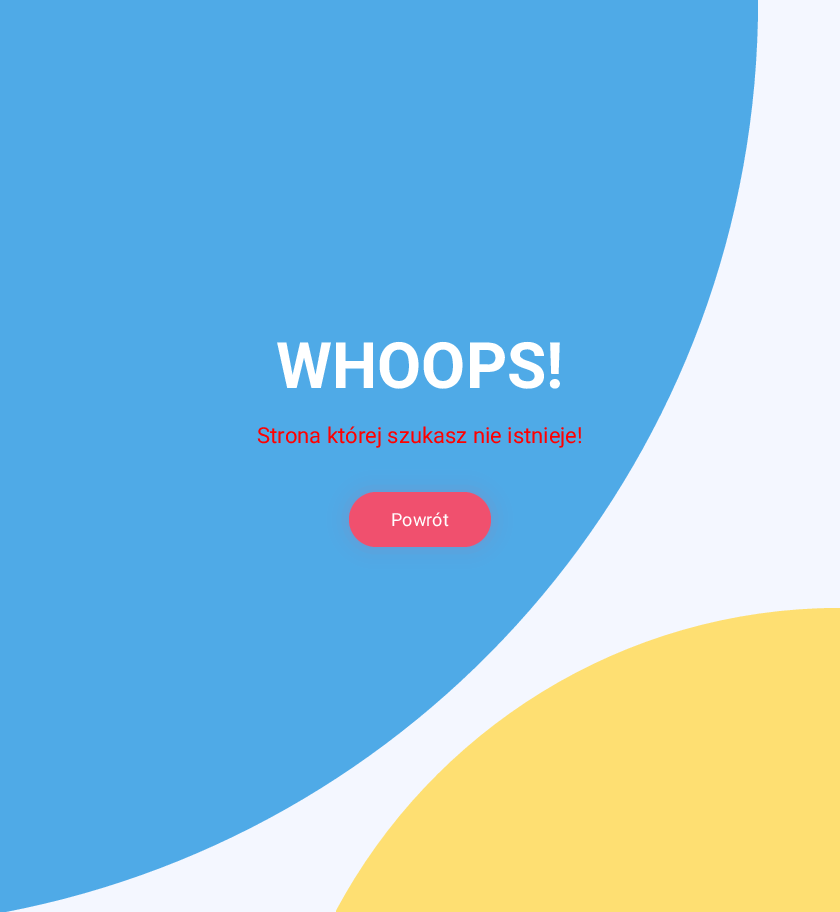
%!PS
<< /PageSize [840 912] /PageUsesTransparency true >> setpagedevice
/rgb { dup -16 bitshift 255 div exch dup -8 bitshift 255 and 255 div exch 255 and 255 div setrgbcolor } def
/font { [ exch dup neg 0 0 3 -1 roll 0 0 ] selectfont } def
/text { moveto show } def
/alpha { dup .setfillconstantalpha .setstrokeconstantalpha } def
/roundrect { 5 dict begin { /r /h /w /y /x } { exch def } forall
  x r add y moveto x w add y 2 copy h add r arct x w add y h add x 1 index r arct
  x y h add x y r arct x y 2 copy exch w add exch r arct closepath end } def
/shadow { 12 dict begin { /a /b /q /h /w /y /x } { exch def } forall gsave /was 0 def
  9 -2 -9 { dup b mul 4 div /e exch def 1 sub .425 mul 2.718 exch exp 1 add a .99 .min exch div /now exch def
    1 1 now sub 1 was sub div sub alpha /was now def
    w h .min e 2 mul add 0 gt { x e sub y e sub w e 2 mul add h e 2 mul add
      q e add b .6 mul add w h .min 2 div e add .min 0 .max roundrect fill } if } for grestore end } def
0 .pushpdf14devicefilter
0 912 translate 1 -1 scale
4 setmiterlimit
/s1 { /Roboto-Bold 64 font 16#FFFFFF rgb } def
/s2 { /Roboto-Regular 22 font 16#FF0000 rgb } def
/s3 { /Roboto-Regular 18 font 16#FFFFFF rgb } def
16#F4F7FF rgb
0 0 840 912 rectfill
16#4FAAE7 rgb
5 912 moveto 434 830 758 453 758 0 curveto 0 0 lineto 0 912 lineto closepath fill
s1
(WHOOPS!) 276 388 text
s2
(Strona której szukasz nie istnieje!) 257 443 text
16#F0506E rgb
349 492 142 55 27.5 10 0.2 shadow
349 492 142 55 27.5 roundrect fill
s3
(Powrót) 391 526 text
16#FEDF72 rgb
336 911 moveto 336 912 lineto 840 912 lineto 840 608 lineto 622 608 432 731 336 911 curveto closepath fill
.poppdf14devicefilter showpage
